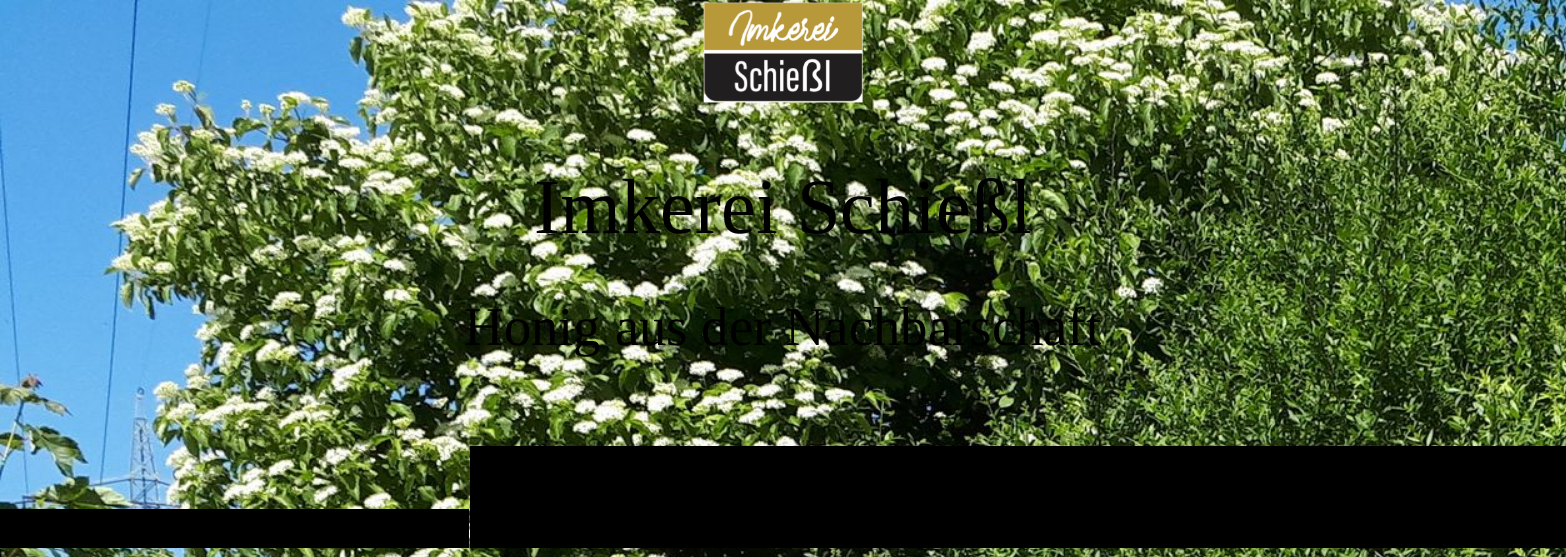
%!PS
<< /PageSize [1566 557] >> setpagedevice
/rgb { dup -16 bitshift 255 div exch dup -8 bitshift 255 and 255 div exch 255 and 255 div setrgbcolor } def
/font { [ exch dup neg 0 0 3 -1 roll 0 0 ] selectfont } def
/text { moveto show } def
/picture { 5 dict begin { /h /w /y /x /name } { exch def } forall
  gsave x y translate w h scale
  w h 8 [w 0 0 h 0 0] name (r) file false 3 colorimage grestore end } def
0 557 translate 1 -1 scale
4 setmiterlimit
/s1 { /LiberationSerif-Regular 78.25 font 16#000000 rgb } def
/s2 { /LiberationSerif-Regular 54.75 font 16#000000 rgb } def
16#FFFFFF rgb
0 0 1566 557 rectfill
(pic1.raw) 0 0 1566 557 picture
(pic2.raw) 703 2 160 101 picture
s1
(Imkerei Schießl) 534 233 text
s2
(Honig aus der Nachbarschaft) 464 345 text
0 509 469 39 rectfill
470 446 1096 102 rectfill
showpage
